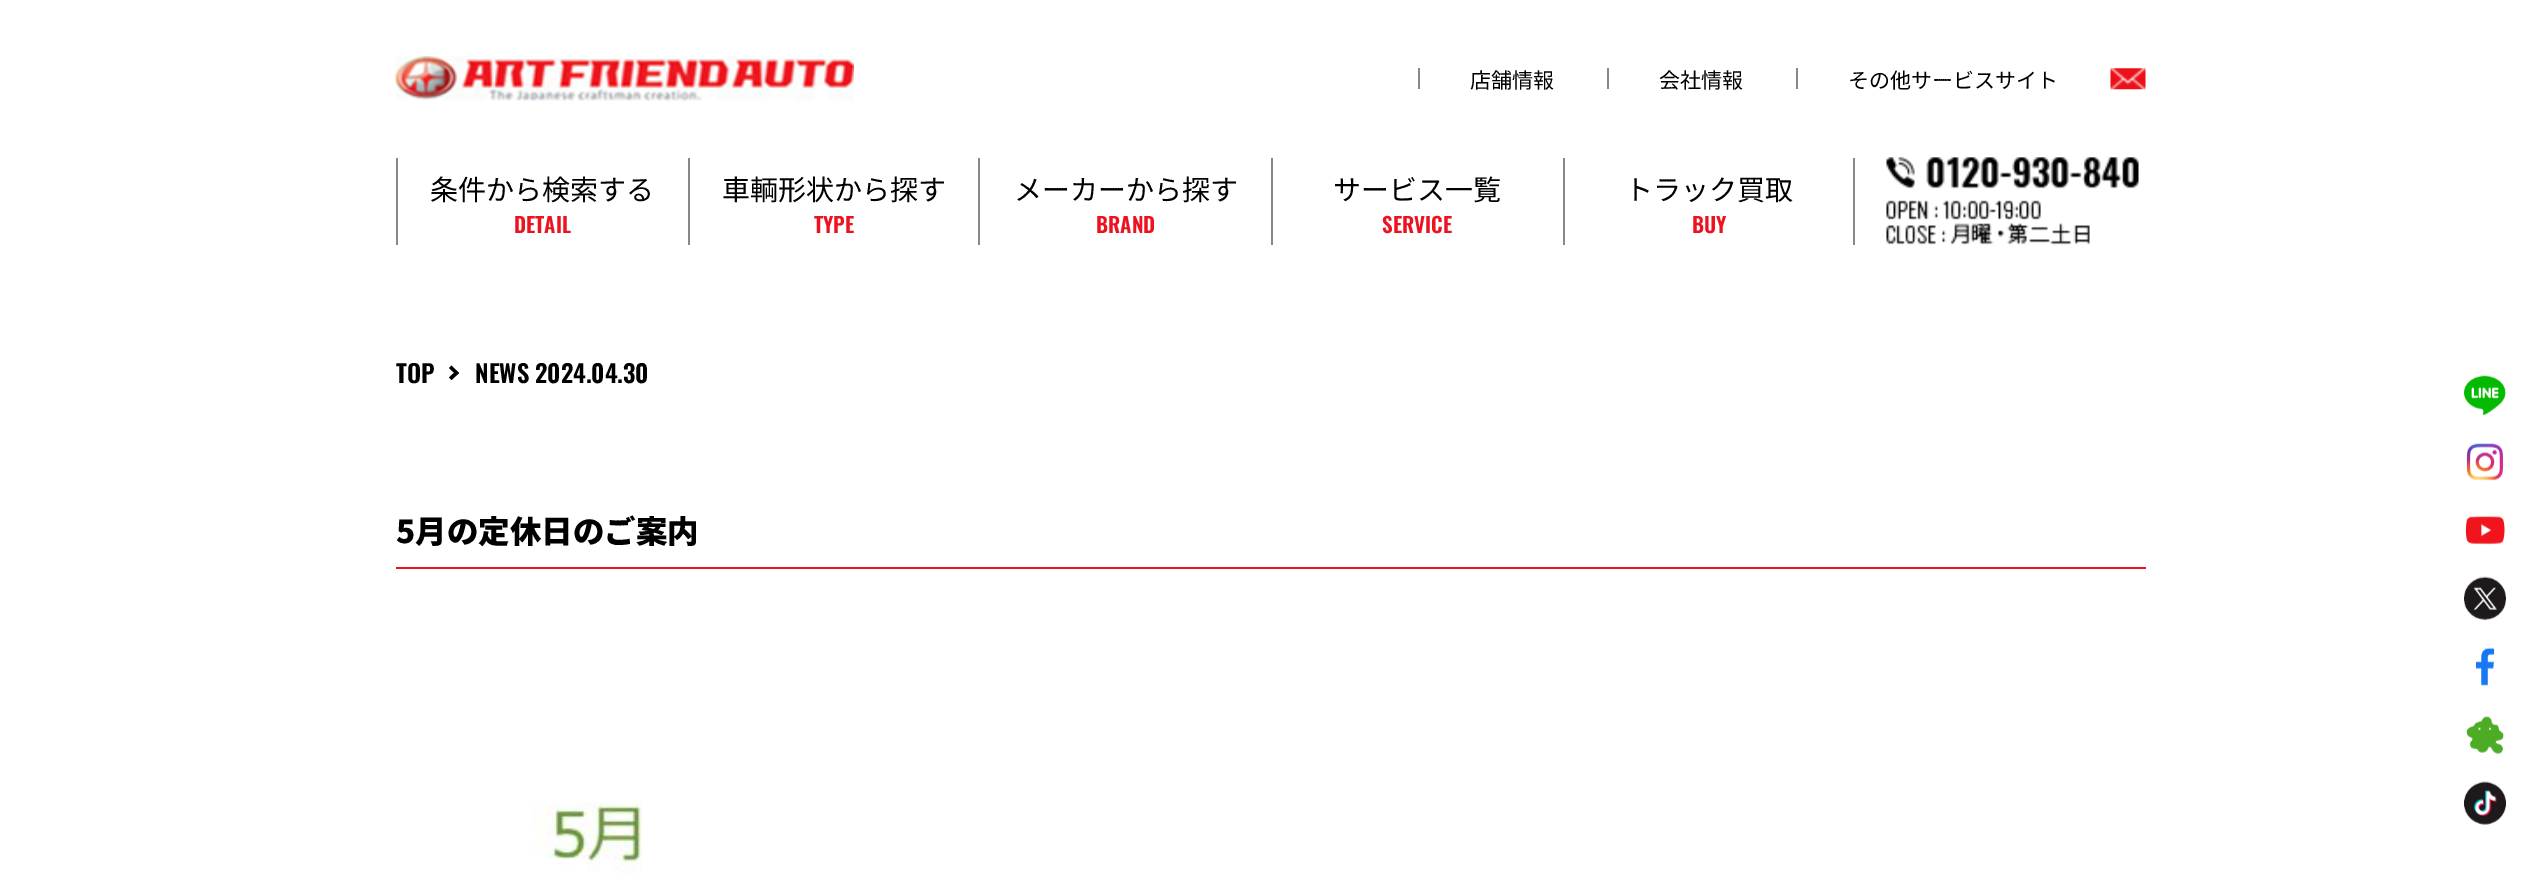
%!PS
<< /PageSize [2540 876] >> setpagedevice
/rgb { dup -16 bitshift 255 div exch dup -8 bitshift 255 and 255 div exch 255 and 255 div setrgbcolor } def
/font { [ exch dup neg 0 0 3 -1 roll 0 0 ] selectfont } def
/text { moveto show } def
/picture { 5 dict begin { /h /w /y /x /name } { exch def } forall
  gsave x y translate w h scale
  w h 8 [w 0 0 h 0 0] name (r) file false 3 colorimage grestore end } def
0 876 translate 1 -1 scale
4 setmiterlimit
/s1 { /NotoSansJP-Regular 21 font 16#000000 rgb } def
/s2 { /NotoSansJP-Regular 28 font 16#000000 rgb } def
/s3 { /Oswald-SemiBold 21 font 16#ED1220 rgb } def
/s4 { /Oswald-SemiBold 24.5 font 16#000000 rgb } def
/s5 { /NotoSansJP-Black 31.5 font 16#000000 rgb } def
16#FFFFFF rgb
0 0 2540 876 rectfill
(pic1.raw) 395 56 459 46 picture
16#888888 rgb
1418 68 2 21 rectfill
s1
(店舗情報) 1470 88 text
16#888888 rgb
1607 68 2 21 rectfill
s1
(会社情報) 1659 88 text
16#888888 rgb
1796 68 2 21 rectfill
s1
(その他サービスサイト) 1848 88 text
(pic2.raw) 2110 68 36 22 picture
16#888888 rgb
396 158 2 87 rectfill
s2
(条件から検索する) 430 200 text
s3
(DETAIL) 514 233 text
16#888888 rgb
688 158 2 87 rectfill
s2
(車輌形状から探す) 722 200 text
s3
(TYPE) 814 233 text
16#888888 rgb
978 158 2 87 rectfill
s2
(メーカーから探す) 1014 200 text
s3
(BRAND) 1096 233 text
16#888888 rgb
1271 158 2 87 rectfill
s2
(サービス一覧) 1333 200 text
s3
(SERVICE) 1382 233 text
16#888888 rgb
1563 158 2 87 rectfill
s2
(トラック買取) 1625 200 text
s3
(BUY) 1692 233 text
16#888888 rgb
1853 158 2 87 rectfill
(pic3.raw) 1886 157 253 88 picture
s4
(TOP) 396 383 text
451.5 365.5 moveto 459 373 lineto 456.5 375 lineto 449 368 lineto closepath fill
456.5 370.5 moveto 459 373 lineto 451.5 380 lineto 449 377.5 lineto closepath fill
(NEWS 2024.04.30) 475 383 text
(pic4.raw) 2464 375 42 40 picture
(pic5.raw) 2466 443 37 38 picture
(pic6.raw) 2465 516 40 29 picture
(pic7.raw) 2464 576 42 44 picture
(pic8.raw) 2476 647 19 39 picture
(pic9.raw) 2466 716 38 38 picture
(pic10.raw) 2464 781 42 44 picture
16#ED1220 rgb
396 567 1750 2 rectfill
s5
(5月の定休日のご案内) 396 543 text
(pic11.raw) 532 802 111 74 picture
showpage
